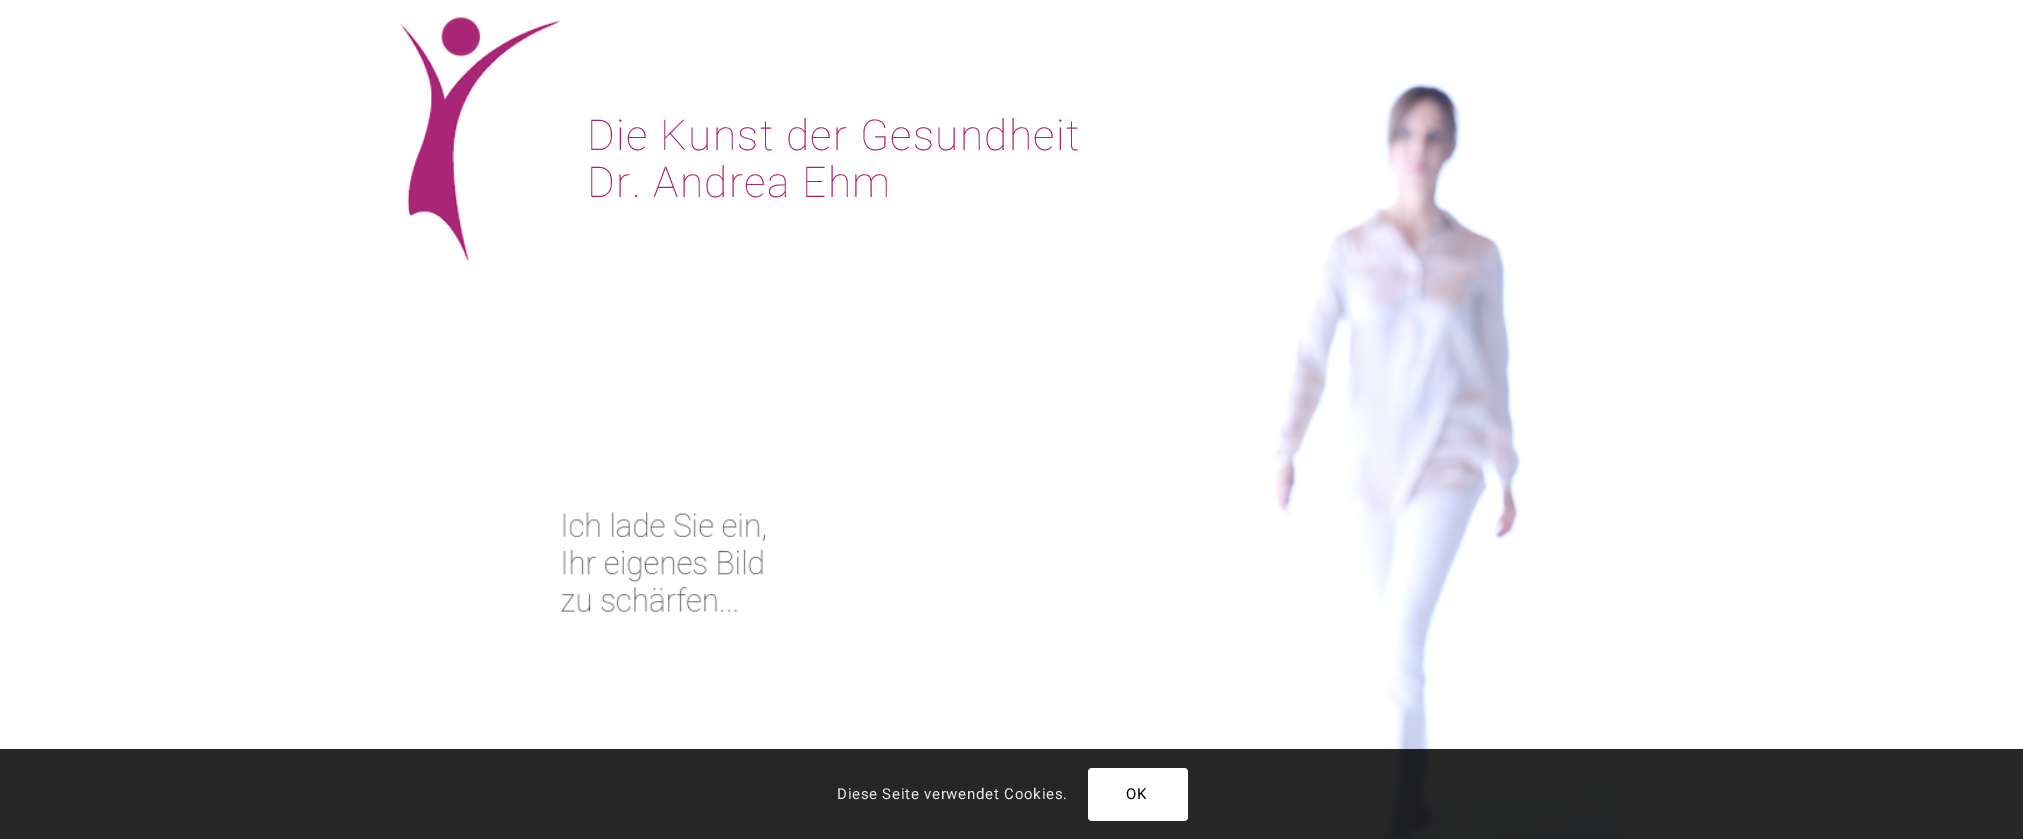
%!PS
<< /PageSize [2023 839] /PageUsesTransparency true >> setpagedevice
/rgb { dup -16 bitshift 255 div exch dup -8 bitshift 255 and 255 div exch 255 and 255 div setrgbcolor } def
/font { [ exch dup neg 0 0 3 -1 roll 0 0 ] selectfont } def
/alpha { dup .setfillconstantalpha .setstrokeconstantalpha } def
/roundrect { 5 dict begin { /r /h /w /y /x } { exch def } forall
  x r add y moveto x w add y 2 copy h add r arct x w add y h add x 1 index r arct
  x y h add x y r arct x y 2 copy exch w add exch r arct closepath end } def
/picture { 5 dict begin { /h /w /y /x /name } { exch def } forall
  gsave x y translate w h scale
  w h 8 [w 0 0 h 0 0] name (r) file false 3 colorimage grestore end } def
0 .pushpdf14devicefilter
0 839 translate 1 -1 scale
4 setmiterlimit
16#FFFFFF rgb
0 0 2023 839 rectfill
(pic1.raw) 400 17 160 244 picture
/Roboto-Thin 42.5 font
16#AA2175 rgb
587 150 moveto 1.25 0 (Die Kunst der Gesundheit) ashow
587 197 moveto 1.25 0 (Dr. Andrea Ehm) ashow
(pic2.raw) 1275 82 349 757 picture
(pic3.raw) 560 512 206 100 picture
0.85 alpha
16#000000 rgb
0 749 2023 90 rectfill
/Roboto-Regular 15 font
1 alpha
16#E9E9E9 rgb
837 799 moveto 0.75 0 (Diese Seite verwendet Cookies.) ashow
16#FFFFFF rgb
1088 768 100 53 4 roundrect fill
16#000000 rgb
1126 799 moveto 0.75 0 (OK) ashow
.poppdf14devicefilter showpage
